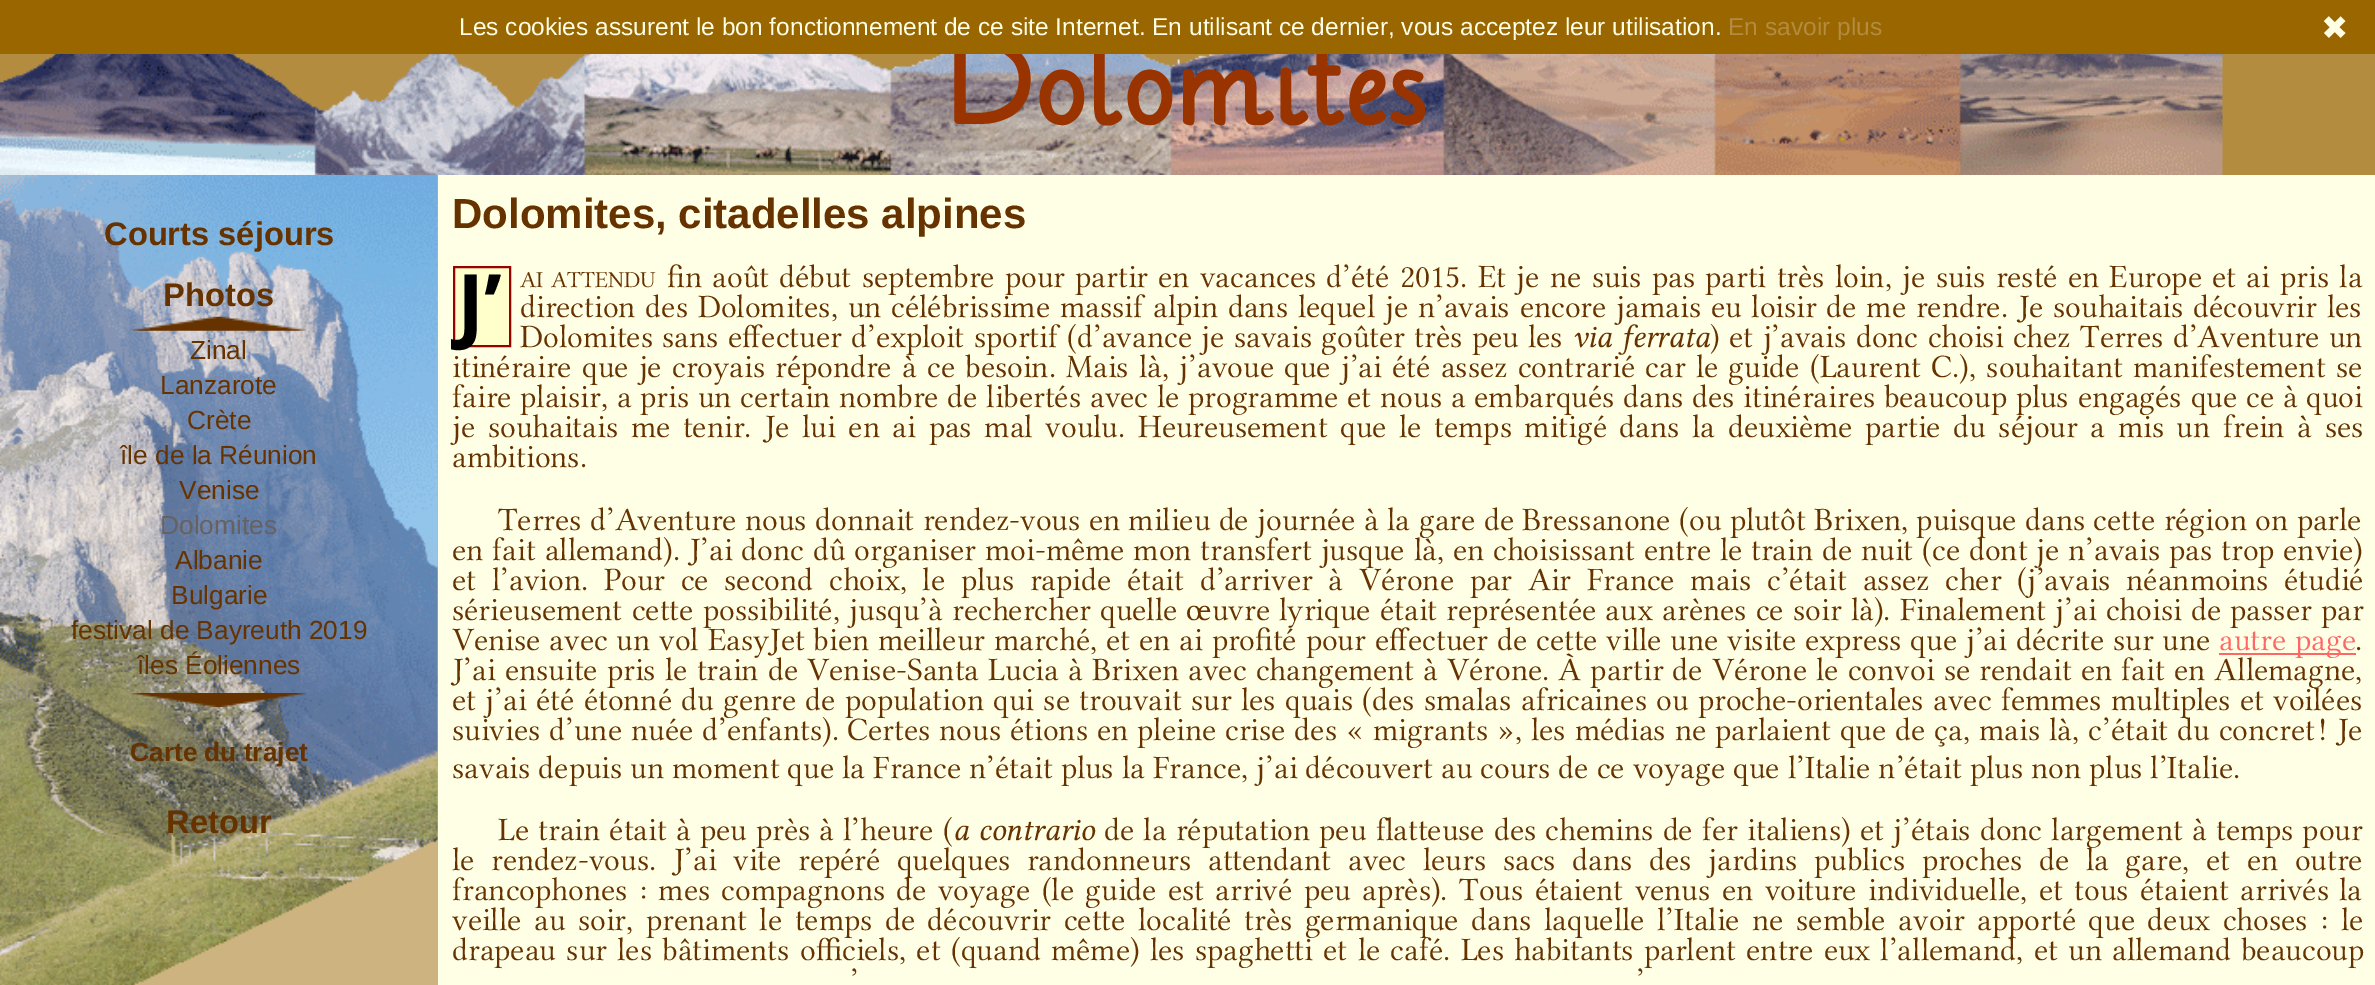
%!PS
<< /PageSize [2375 985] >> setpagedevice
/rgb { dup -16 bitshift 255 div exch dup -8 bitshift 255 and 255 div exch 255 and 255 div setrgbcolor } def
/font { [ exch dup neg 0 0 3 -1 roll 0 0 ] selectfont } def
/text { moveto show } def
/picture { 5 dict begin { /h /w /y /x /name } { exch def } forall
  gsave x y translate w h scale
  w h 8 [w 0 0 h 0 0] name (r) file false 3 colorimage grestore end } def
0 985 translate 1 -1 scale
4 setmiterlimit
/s1 { /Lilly-Regular 94.5 font 16#993300 rgb } def
/s2 { /LiberationSans-Regular 24.5 font 16#FFFFE6 rgb } def
/s3 { /LiberationSans-Regular 24.5 font 16#B38C40 rgb } def
/s4 { /DejaVuSans-Regular 32.67 font 16#FFFFE6 rgb } def
/s5 { /LiberationSans-Bold 32.67 font 16#663300 rgb } def
/s6 { /LiberationSans-Regular 26.25 font 16#663300 rgb } def
/s7 { /LiberationSans-Regular 26.25 font 16#676164 rgb } def
/s8 { /LiberationSans-Bold 26.25 font 16#663300 rgb } def
/s9 { /LiberationSans-Bold 42 font 16#663300 rgb } def
/s10 { /NotoSans-Bold 82 font 16#000000 rgb } def
/s11 { /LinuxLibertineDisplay-Regular 23 font 16#663300 rgb } def
/s12 { /LinuxLibertineDisplay-Regular 32.67 font 16#663300 rgb } def
16#FFFFE6 rgb
0 0 2375 985 rectfill
16#B38C40 rgb
0 54 2375 121 rectfill
(pic1.raw) 0 54 2223 121 picture
s1
(Dolomites) 947 124 text
16#996600 rgb
0 0 2375 54 rectfill
s2
(Les cookies assurent le bon fonctionnement de ce site Internet. En utilisant ce dernier, vous acceptez leur utilisation.) 459 35 text
s3
(En savoir plus) 1728 35 text
s4
(✖) 2321 39 text
16#CCB380 rgb
131 175 307 810 rectfill
(pic2.raw) 0 175 438 810 picture
s5
(Courts séjours) 104 245 text
(Photos) 163 306 text
(pic3.raw) 131 316 176 15 picture
s6
(Zinal) 190 359 text
(Lanzarote) 160 394 text
(Crète) 187 429 text
(île de la Réunion) 120 464 text
(Venise) 179 499 text
s7
(Dolomites) 160 534 text
s6
(Albanie) 175 569 text
(Bulgarie) 171 604 text
(festival de Bayreuth 2019) 71 639 text
(îles Éoliennes) 137 674 text
(pic4.raw) 131 693 176 14 picture
s8
(Carte du trajet) 130 761 text
s5
(Retour) 166 833 text
s9
(Dolomites, citadelles alpines) 452 228 text
16#FFFFCC rgb
454 267 moveto 510 267 lineto 510 346 lineto 454 346 lineto closepath gsave fill grestore
16#990000 rgb
2 setlinewidth
stroke
s10
(J’) 457 333 text
s11
(AI) 520 287 text
(ATTENDU) 551 287 text
/LinuxLibertineDisplay-Regular 32.67 font
667 287 moveto 2.2 0 32 (ﬁn août début septembre pour partir en vacances d’été 2015. Et je ne suis pas parti très loin, je suis resté en) widthshow
2109 287 moveto 2.2 0 32 (Europe et ai pris la) widthshow
520 317 moveto 1.75 0 32 (direction des Dolomites, un célébrissime massif alpin dans lequel je n’avais encore jamais eu loisir de me rendre. Je souhaitais découvrir les) widthshow
520 347 moveto 1.25 0 32 (Dolomites sans eﬀectuer d’exploit sportif \(d’avance je savais goûter très peu les) widthshow
/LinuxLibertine-Italic 32.67 font
1572 347 moveto 1 0 32 (via ferrata) widthshow
/LinuxLibertineDisplay-Regular 32.67 font
1710 347 moveto 1.25 0 32 (\) et j’avais donc choisi chez Terres d’Aventure un) widthshow
452 377 moveto 2.1 0 32 (itinéraire que je croyais répondre à ce besoin. Mais là, j’avoue que j’ai été assez contrarié car le guide \(Laurent C.\), souhaitant manifestement se) widthshow
452 407 moveto 0.7 0 32 (faire plaisir, a pris un certain nombre de libertés avec le programme et nous a embarqués dans des itinéraires beaucoup plus engagés que ce à quoi) widthshow
452 437 moveto 4.5 0 32 (je souhaitais me tenir. Je lui en ai pas mal voulu. Heureusement que le temps mitigé dans la deuxième partie du séjour a mis un frein à ses) widthshow
(ambitions.) 452 467 text
498 530 moveto 0.3 0 32 (Terres d’Aventure nous donnait rendez-vous en milieu de journée à la gare de Bressanone \(ou plutôt Brixen, puisque dans cette région on parle) widthshow
452 560 moveto 0.75 0 32 (en fait allemand\). J’ai donc dû organiser moi-même mon transfert jusque là, en choisissant entre le train de nuit \(ce dont je n’avais pas trop envie\)) widthshow
452 590 moveto 7.6 0 32 (et l’avion. Pour ce second choix, le plus rapide était d’arriver à Vérone par Air France mais c’était assez cher \(j’avais néanmoins étudié) widthshow
452 620 moveto 1.25 0 32 (sérieusement cette possibilité, jusqu’à rechercher quelle œuvre lyrique était représentée aux arènes ce soir là\). Finalement j’ai choisi de passer par) widthshow
452 650 moveto 0.75 0 32 (Venise avec un vol EasyJet bien meilleur marché, et en ai proﬁté pour eﬀectuer de cette ville une visite express que j’ai décrite sur une) widthshow
16#FF6666 rgb
2219 653 137 2 rectfill
2219 650 moveto 1 0 32 (autre page) widthshow
s12
(.) 2355 650 text
452 680 moveto 1.1 0 32 (J’ai ensuite pris le train de Venise-Santa Lucia à Brixen avec changement à) widthshow
1447 680 moveto 1.1 0 32 (Vérone. À partir de Vérone le convoi se rendait en fait en Allemagne,) widthshow
452 710 moveto 1.25 0 32 (et j’ai été étonné du genre de population) widthshow
993 710 moveto 1.25 0 32 (qui se trouvait sur les quais \(des smalas africaines ou proche-orientales avec femmes multiples et voilées) widthshow
452 740 moveto 1 0 32 (suivies d’une nuée d’enfants\).) widthshow
847 740 moveto 0.9 0 32 (Certes nous étions en pleine crise des « migrants », les médias ne parlaient que de ça, mais là, c’était du concret) widthshow
2318 740 moveto 1 0 32 (! Je) widthshow
(savais depuis un moment que la France n’était plus la France, j’ai découvert au cours de ce voyage que l’Italie n’était plus non plus l’Italie.) 452 778 text
498 840 moveto 1 0 32 (Le train était à peu près à l’heure \() widthshow
/LinuxLibertine-Italic 32.67 font
953 840 moveto 1 0 32 (a contrario) widthshow
/LinuxLibertineDisplay-Regular 32.67 font
1104 840 moveto 1.1 0 32 (de la réputation peu ﬂatteuse des chemins de fer italiens\) et j’étais donc largement à temps pour) widthshow
452 870 moveto 8.6 0 32 (le rendez-vous. J’ai vite repéré quelques randonneurs attendant avec leurs sacs dans des jardins publics proches de la gare, et en outre) widthshow
452 900 moveto 3.3 0 32 (francophones : mes compagnons de voyage \(le guide est arrivé peu après\). Tous étaient venus en voiture individuelle, et tous étaient arrivés) widthshow
(la) 2339 900 text
452 930 moveto 4.5 0 32 (veille au soir, prenant le temps de découvrir cette localité très germanique dans laquelle l’Italie ne semble avoir apporté que deux choses : le) widthshow
452 960 moveto 2.2 0 32 (drapeau sur les bâtiments oﬃciels, et \(quand même\) les spaghetti et le café. Les habitants parlent entre eux l’allemand, et un allemand beaucoup) widthshow
850 991 moveto 4 0 32 (’) widthshow
1636 991 moveto 4 0 32 (’) widthshow
showpage
